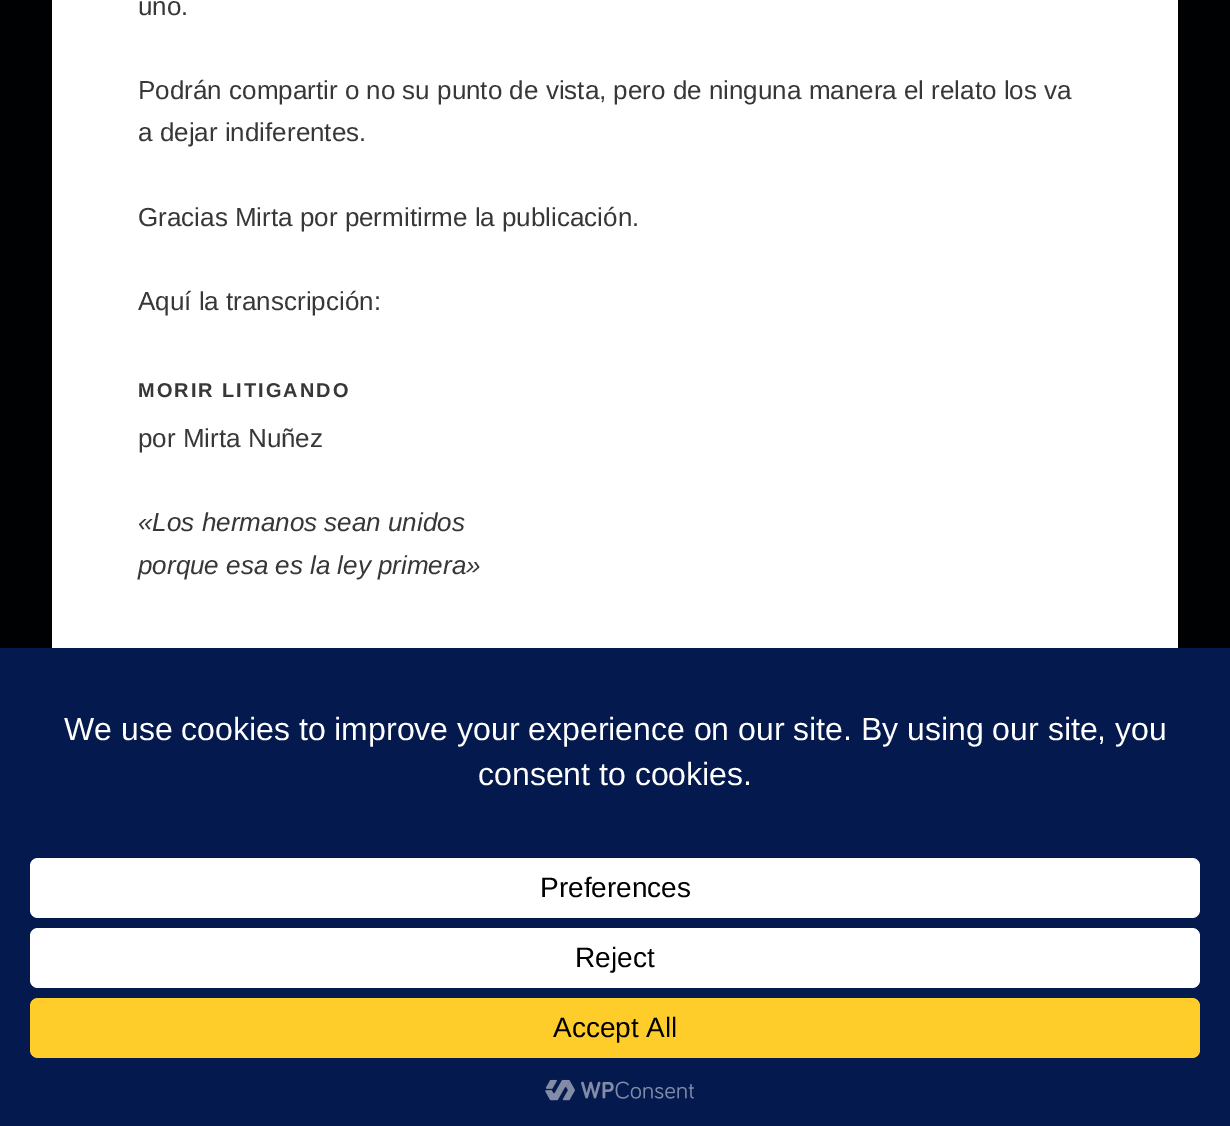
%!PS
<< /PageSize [1230 1126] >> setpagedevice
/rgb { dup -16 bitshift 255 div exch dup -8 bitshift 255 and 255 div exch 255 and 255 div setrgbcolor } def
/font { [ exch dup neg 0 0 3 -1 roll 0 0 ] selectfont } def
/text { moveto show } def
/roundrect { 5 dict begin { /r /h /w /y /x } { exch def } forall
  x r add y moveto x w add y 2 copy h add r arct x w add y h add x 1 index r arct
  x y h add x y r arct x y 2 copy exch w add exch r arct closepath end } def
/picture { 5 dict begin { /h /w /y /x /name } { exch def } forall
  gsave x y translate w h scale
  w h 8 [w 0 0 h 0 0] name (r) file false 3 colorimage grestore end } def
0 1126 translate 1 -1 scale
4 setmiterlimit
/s1 { /LiberationSans-Regular 26 font 16#373737 rgb } def
/s2 { /LiberationSans-Italic 26 font 16#373737 rgb } def
/s3 { /LiberationSans-Regular 32 font 16#FFFFFF rgb } def
/s4 { /LiberationSans-Regular 28 font 16#000000 rgb } def
16#000103 rgb
0 0 1230 1126 rectfill
16#FFFFFF rgb
52 0 1126 648 rectfill
s1
(uno.) 138 15 text
(Podrán compartir o no su punto de vista, pero de ninguna manera el relato los va) 138 99 text
(a dejar indiferentes.) 138 141 text
(Gracias Mirta por permitirme la publicación.) 138 226 text
(Aquí la transcripción:) 138 310 text
/LiberationSans-Bold 20 font
138 397 moveto 2 0 (MORIR LITIGANDO) ashow
s1
(por Mirta Nuñez) 138 447 text
s2
(«Los hermanos sean unidos) 138 531 text
(porque esa es la ley primera») 138 574 text
16#04194E rgb
0 648 1230 478 rectfill
s3
(We use cookies to improve your experience on our site. By using our site, you) 64 740 text
(consent to cookies.) 478 785 text
30 858 1170 60 8 roundrect fill
s4
(Preferences) 540 897 text
16#FFFFFF rgb
30 928 1170 60 8 roundrect fill
s4
(Reject) 575 967 text
16#FFCD2A rgb
30 998 1170 60 8 roundrect fill
s4
(Accept All) 553 1037 text
(pic1.raw) 545 1079 149 22 picture
showpage
